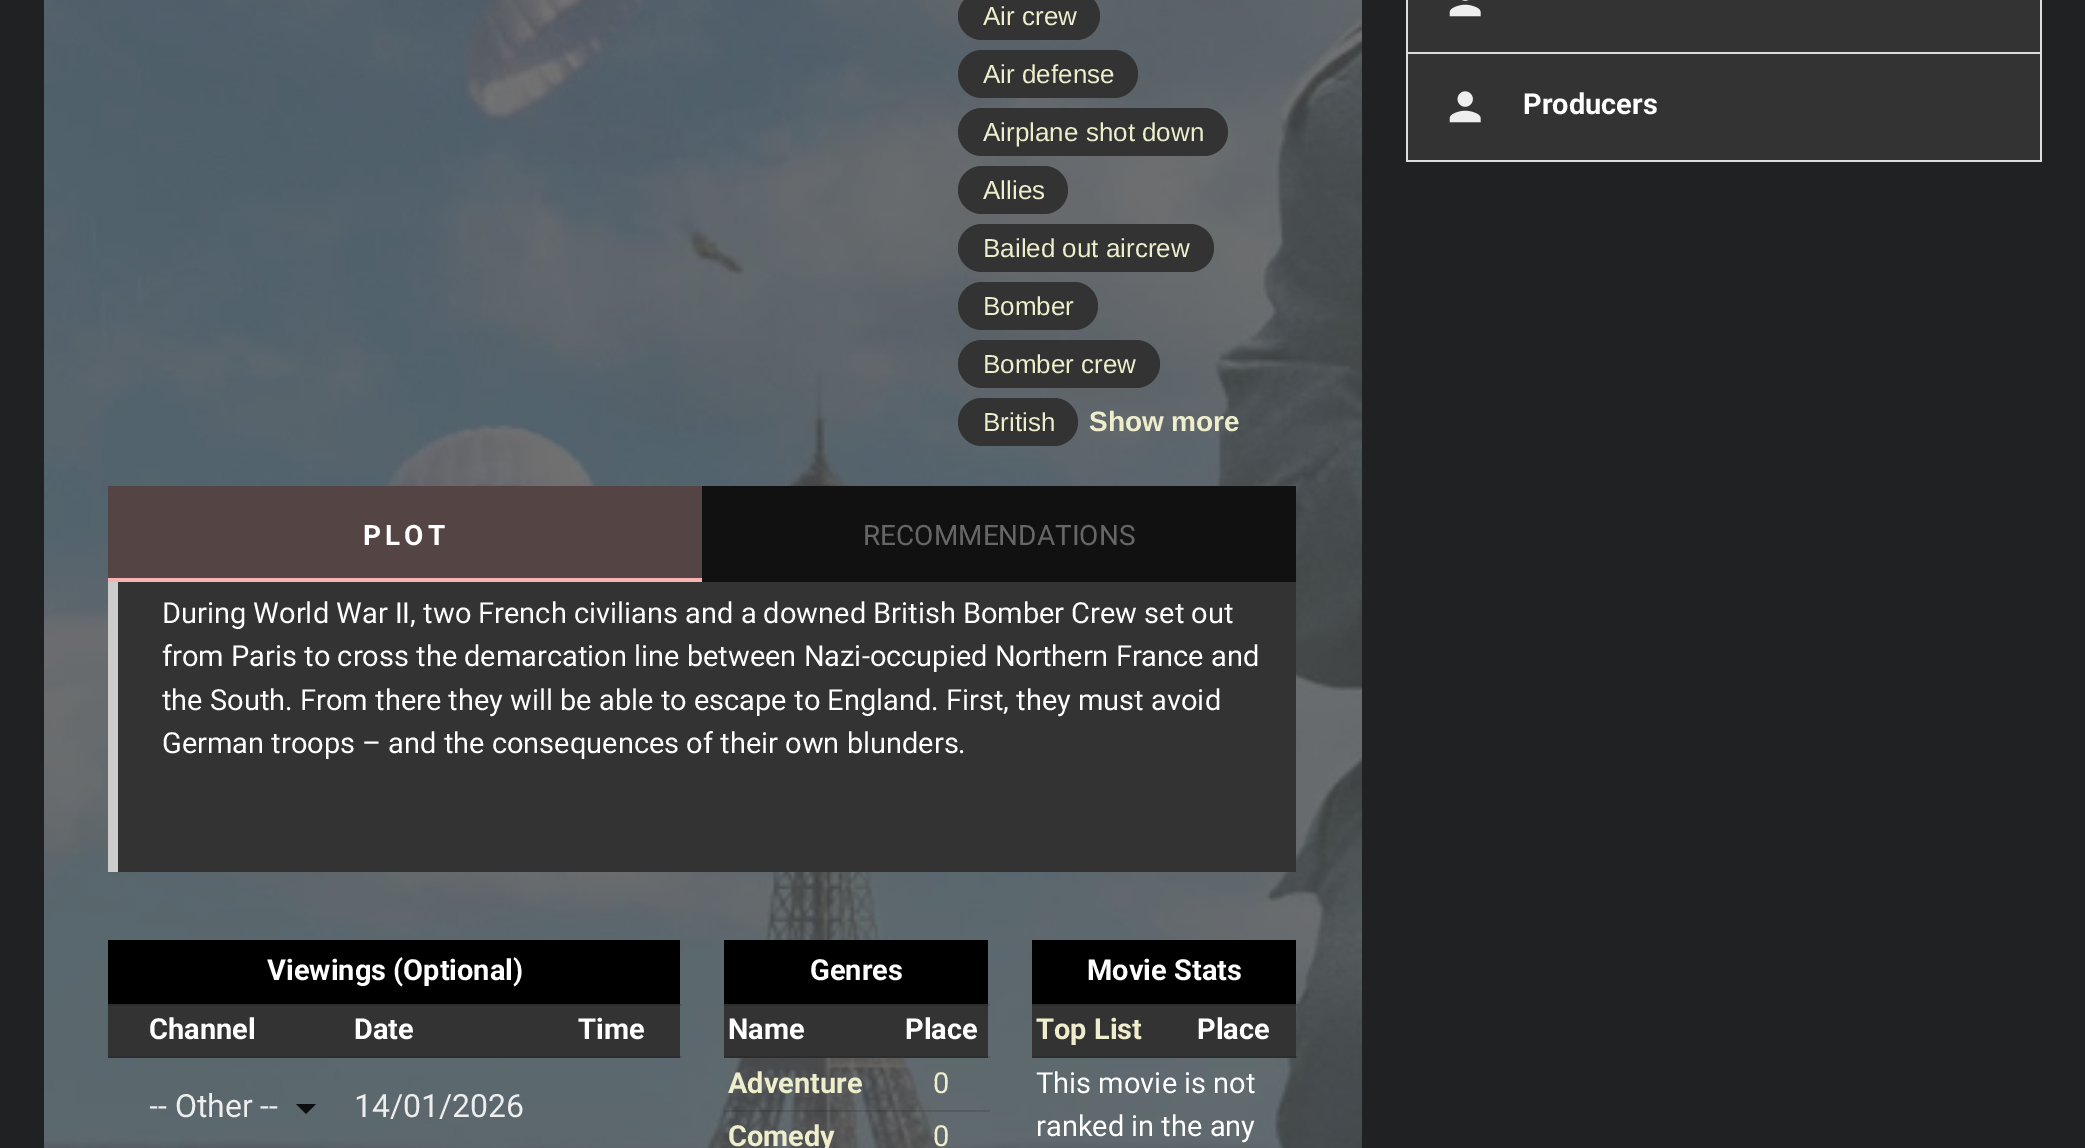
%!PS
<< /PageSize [2085 1148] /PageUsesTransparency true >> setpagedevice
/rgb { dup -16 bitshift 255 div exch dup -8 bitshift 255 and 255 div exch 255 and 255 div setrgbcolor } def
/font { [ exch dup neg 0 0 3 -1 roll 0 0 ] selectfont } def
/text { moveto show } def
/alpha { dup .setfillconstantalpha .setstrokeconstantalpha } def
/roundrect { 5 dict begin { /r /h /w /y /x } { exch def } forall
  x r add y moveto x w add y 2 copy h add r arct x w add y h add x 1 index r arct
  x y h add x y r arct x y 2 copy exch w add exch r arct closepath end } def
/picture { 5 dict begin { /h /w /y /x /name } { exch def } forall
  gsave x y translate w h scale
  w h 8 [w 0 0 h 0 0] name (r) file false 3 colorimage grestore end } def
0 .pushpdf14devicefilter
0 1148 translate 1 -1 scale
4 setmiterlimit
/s1 { /LiberationSans-Regular 26 font 16#EEEECC rgb } def
/s2 { /LiberationSans-Bold 28 font 16#EEEECC rgb } def
/s3 { /Roboto-Regular 28 font 16#666666 rgb } def
/s4 { /Roboto-Regular 29 font 16#FFFFFF rgb } def
/s5 { /Roboto-Bold 29 font 16#FFFFFF rgb } def
/s6 { /Roboto-Regular 32 font 16#EEEEEE rgb } def
/s7 { /Roboto-Bold 29 font 16#EEEECC rgb } def
/s8 { /Roboto-Regular 29 font 16#EEEECC rgb } def
16#202123 rgb
0 0 2085 1148 rectfill
(pic1.raw) 44 0 1318 1148 picture
16#333333 rgb
958 -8 142 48 24 roundrect fill
s1
(Air crew) 983 25 text
16#333333 rgb
958 50 180 48 24 roundrect fill
s1
(Air defense) 983 83 text
16#333333 rgb
958 108 270 48 24 roundrect fill
s1
(Airplane shot down) 983 141 text
16#333333 rgb
958 166 110 48 24 roundrect fill
s1
(Allies) 983 199 text
16#333333 rgb
958 224 256 48 24 roundrect fill
s1
(Bailed out aircrew) 983 257 text
16#333333 rgb
958 282 140 48 24 roundrect fill
s1
(Bomber) 983 315 text
16#333333 rgb
958 340 202 48 24 roundrect fill
s1
(Bomber crew) 983 373 text
16#333333 rgb
958 398 120 48 24 roundrect fill
s1
(British) 983 431 text
s2
(Show more) 1089 431 text
16#111111 rgb
702 486 594 96 rectfill
16#554444 rgb
108 486 594 92 rectfill
/Roboto-Bold 28 font
16#FFFFFF rgb
363 545 moveto 4 0 (PLOT) ashow
s3
(RECOMMENDATIONS) 863 545 text
16#F6B2B5 rgb
108 578 594 4 rectfill
16#333333 rgb
118 582 1178 290 rectfill
16#CCCCCC rgb
108 582 10 290 rectfill
s4
(During World War II, two French civilians and a downed British Bomber Crew set out) 162 623 text
(from Paris to cross the demarcation line between Nazi-occupied Northern France and) 162 666 text
(the South. From there they will be able to escape to England. First, they must avoid) 162 710 text
(German troops – and the consequences of their own blunders.) 162 753 text
16#333333 rgb
108 1004 572 54 rectfill
0.12 alpha
16#000000 rgb
108 1004 574 2 rectfill
1 alpha
108 940 572 64 rectfill
s5
(Viewings \(Optional\)) 267 980 text
0.12 alpha
16#000000 rgb
108 1056 574 2 rectfill
1 alpha
s5
(Channel) 149 1039 text
(Date) 354 1039 text
(Time) 578 1039 text
gsave
150 1088 180 38 rectclip
s6
(-- Other --) 149 1117 text
grestore
16#0C0D0E rgb
296 1104 moveto 306 1114 lineto 316 1104 lineto closepath fill
s6
(14/01/2026) 354 1117 text
16#333333 rgb
724 1004 264 54 rectfill
0.12 alpha
16#000000 rgb
724 1004 266 2 rectfill
1 alpha
724 940 264 64 rectfill
s5
(Genres) 810 980 text
0.12 alpha
16#000000 rgb
724 1056 266 2 rectfill
1 alpha
s5
(Name) 728 1039 text
(Place) 905 1039 text
0.12 alpha
16#000000 rgb
724 1110 266 2 rectfill
1 alpha
s7
(Adventure) 728 1093 text
s8
(0) 933 1093 text
s7
(Comedy) 728 1146 text
s8
(0) 933 1146 text
16#333333 rgb
1032 1004 264 54 rectfill
0.12 alpha
16#000000 rgb
1032 1004 266 2 rectfill
1 alpha
1032 940 264 64 rectfill
s5
(Movie Stats) 1087 980 text
0.12 alpha
16#000000 rgb
1032 1056 266 2 rectfill
1 alpha
s7
(Top List) 1036 1039 text
s5
(Place) 1197 1039 text
s4
(This movie is not) 1036 1093 text
(ranked in the any) 1036 1136 text
16#DDDDDD rgb
2040 0 2 162 rectfill
1406 0 2 162 rectfill
16#333333 rgb
1408 0 632 52 rectfill
16#DDDDDD rgb
1408 52 632 2 rectfill
(pic2.raw) 1449 0 32 17 picture
16#333333 rgb
1408 54 632 106 rectfill
16#DDDDDD rgb
1408 160 632 2 rectfill
(pic3.raw) 1449 91 32 32 picture
s5
(Producers) 1523 114 text
.poppdf14devicefilter showpage
